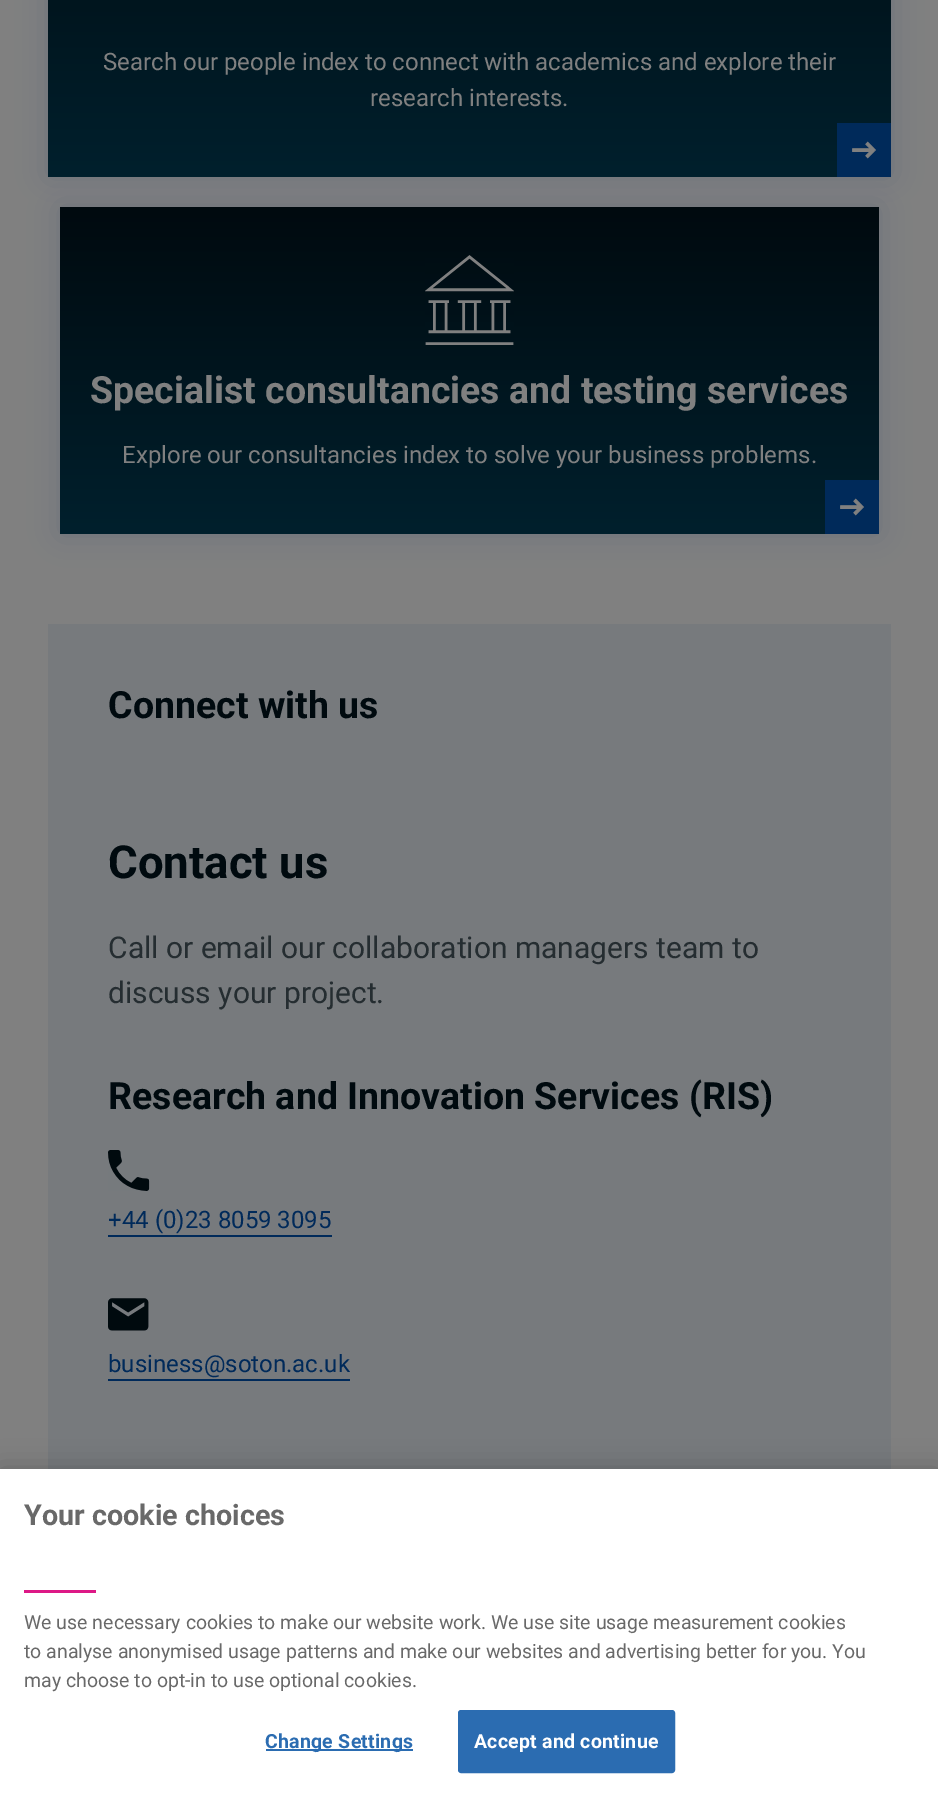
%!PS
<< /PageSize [938 1797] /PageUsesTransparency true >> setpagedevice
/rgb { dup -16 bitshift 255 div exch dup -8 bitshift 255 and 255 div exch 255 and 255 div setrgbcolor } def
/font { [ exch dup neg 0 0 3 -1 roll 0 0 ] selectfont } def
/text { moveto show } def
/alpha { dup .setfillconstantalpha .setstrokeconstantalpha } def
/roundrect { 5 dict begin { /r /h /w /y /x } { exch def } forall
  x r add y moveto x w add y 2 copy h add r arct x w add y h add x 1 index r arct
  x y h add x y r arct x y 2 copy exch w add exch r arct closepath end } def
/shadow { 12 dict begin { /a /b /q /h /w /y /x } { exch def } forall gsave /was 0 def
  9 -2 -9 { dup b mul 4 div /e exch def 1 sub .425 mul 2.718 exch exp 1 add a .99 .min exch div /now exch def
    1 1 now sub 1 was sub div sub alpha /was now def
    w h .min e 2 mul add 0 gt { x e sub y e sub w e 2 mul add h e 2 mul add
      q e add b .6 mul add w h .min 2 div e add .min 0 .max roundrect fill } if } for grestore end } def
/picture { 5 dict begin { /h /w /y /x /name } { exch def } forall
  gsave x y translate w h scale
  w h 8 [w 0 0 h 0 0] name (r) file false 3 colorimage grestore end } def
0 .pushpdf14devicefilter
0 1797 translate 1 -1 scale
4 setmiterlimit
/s1 { /Roboto-Regular 24 font 16#808080 rgb } def
/s2 { /Roboto-Bold 37.5 font 16#808080 rgb } def
/s3 { /Roboto-Bold 37.5 font 16#000A0F rgb } def
/s4 { /Roboto-Bold 45.5 font 16#000A0F rgb } def
/s5 { /Roboto-Regular 30 font 16#252D31 rgb } def
/s6 { /Roboto-Regular 24 font 16#002A5A rgb } def
/s7 { /Roboto-Bold 28.75 font 16#696969 rgb } def
/s8 { /Roboto-Regular 19.5 font 16#696969 rgb } def
16#808080 rgb
0 0 938 1797 rectfill
16#002A5A rgb
48 -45 843 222 0 15 0.15 shadow
gsave 48 0 moveto 891 0 lineto 891 177 lineto 48 177 lineto closepath clip newpath
<< /ShadingType 2 /ColorSpace /DeviceRGB /Coords [470 -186 470 177] /Extend [true true] /Function << /FunctionType 2 /Domain [0 1] /C0 [0 0.039 0.059] /C1 [0 0.125 0.176] /N 1 >> >> shfill grestore
s1
(Search our people index to connect with academics and explore their) 103 70 text
(research interests.) 370 106 text
16#002A5A rgb
837 123 54 54 rectfill
(pic1.raw) 852 141 24 18 picture
60 207 819 327 0 15 0.15 shadow
gsave 60 207 moveto 879 207 lineto 879 534 lineto 60 534 lineto closepath clip newpath
<< /ShadingType 2 /ColorSpace /DeviceRGB /Coords [470 207 470 534] /Extend [true true] /Function << /FunctionType 2 /Domain [0 1] /C0 [0 0.039 0.059] /C1 [0 0.125 0.176] /N 1 >> >> shfill grestore
(pic2.raw) 425 255 89 90 picture
s2
(Specialist consultancies and testing services) 90 403 text
s1
(Explore our consultancies index to solve your business problems.) 122 463 text
16#002A5A rgb
825 480 54 54 rectfill
(pic1.raw) 840 498 24 18 picture
16#777A7D rgb
48 624 843 845 rectfill
s3
(Connect with us) 108 718 text
s4
(Contact us) 108 878 text
s5
(Call or email our collaboration managers team to) 108 958 text
(discuss your project.) 108 1003 text
s3
(Research and Innovation Services \(RIS\)) 108 1109 text
(pic3.raw) 108 1150 42 41 picture
s6
(+44 \(0\)23 8059 3095) 108 1228 text
108 1235 224 2 rectfill
(pic4.raw) 108 1298 41 33 picture
(business@soton.ac.uk) 108 1372 text
108 1379 242 2 rectfill
16#000000 rgb
0 1469 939 328 0 13.5 0.2 shadow
16#FFFFFF rgb
0 1469 938 328 rectfill
s7
(Your cookie choices) 24 1525 text
16#DD1886 rgb
24 1590 72 3 rectfill
s8
(We use necessary cookies to make our website work. We use site usage measurement cookies) 24 1629 text
(to analyse anonymised usage patterns and make our websites and advertising better for you. You) 24 1658 text
(may choose to opt-in to use optional cookies.) 24 1687 text
16#2B6CB1 rgb
266 1749 147 2 rectfill
/Roboto-Bold 19.5 font
265 1748 moveto 0.25 0 (Change Settings) ashow
459 1711 215 61 2 roundrect gsave fill grestore
2 setlinewidth
stroke
16#FFFFFF rgb
474 1748 moveto 0.25 0 (Accept and continue) ashow
.poppdf14devicefilter showpage
